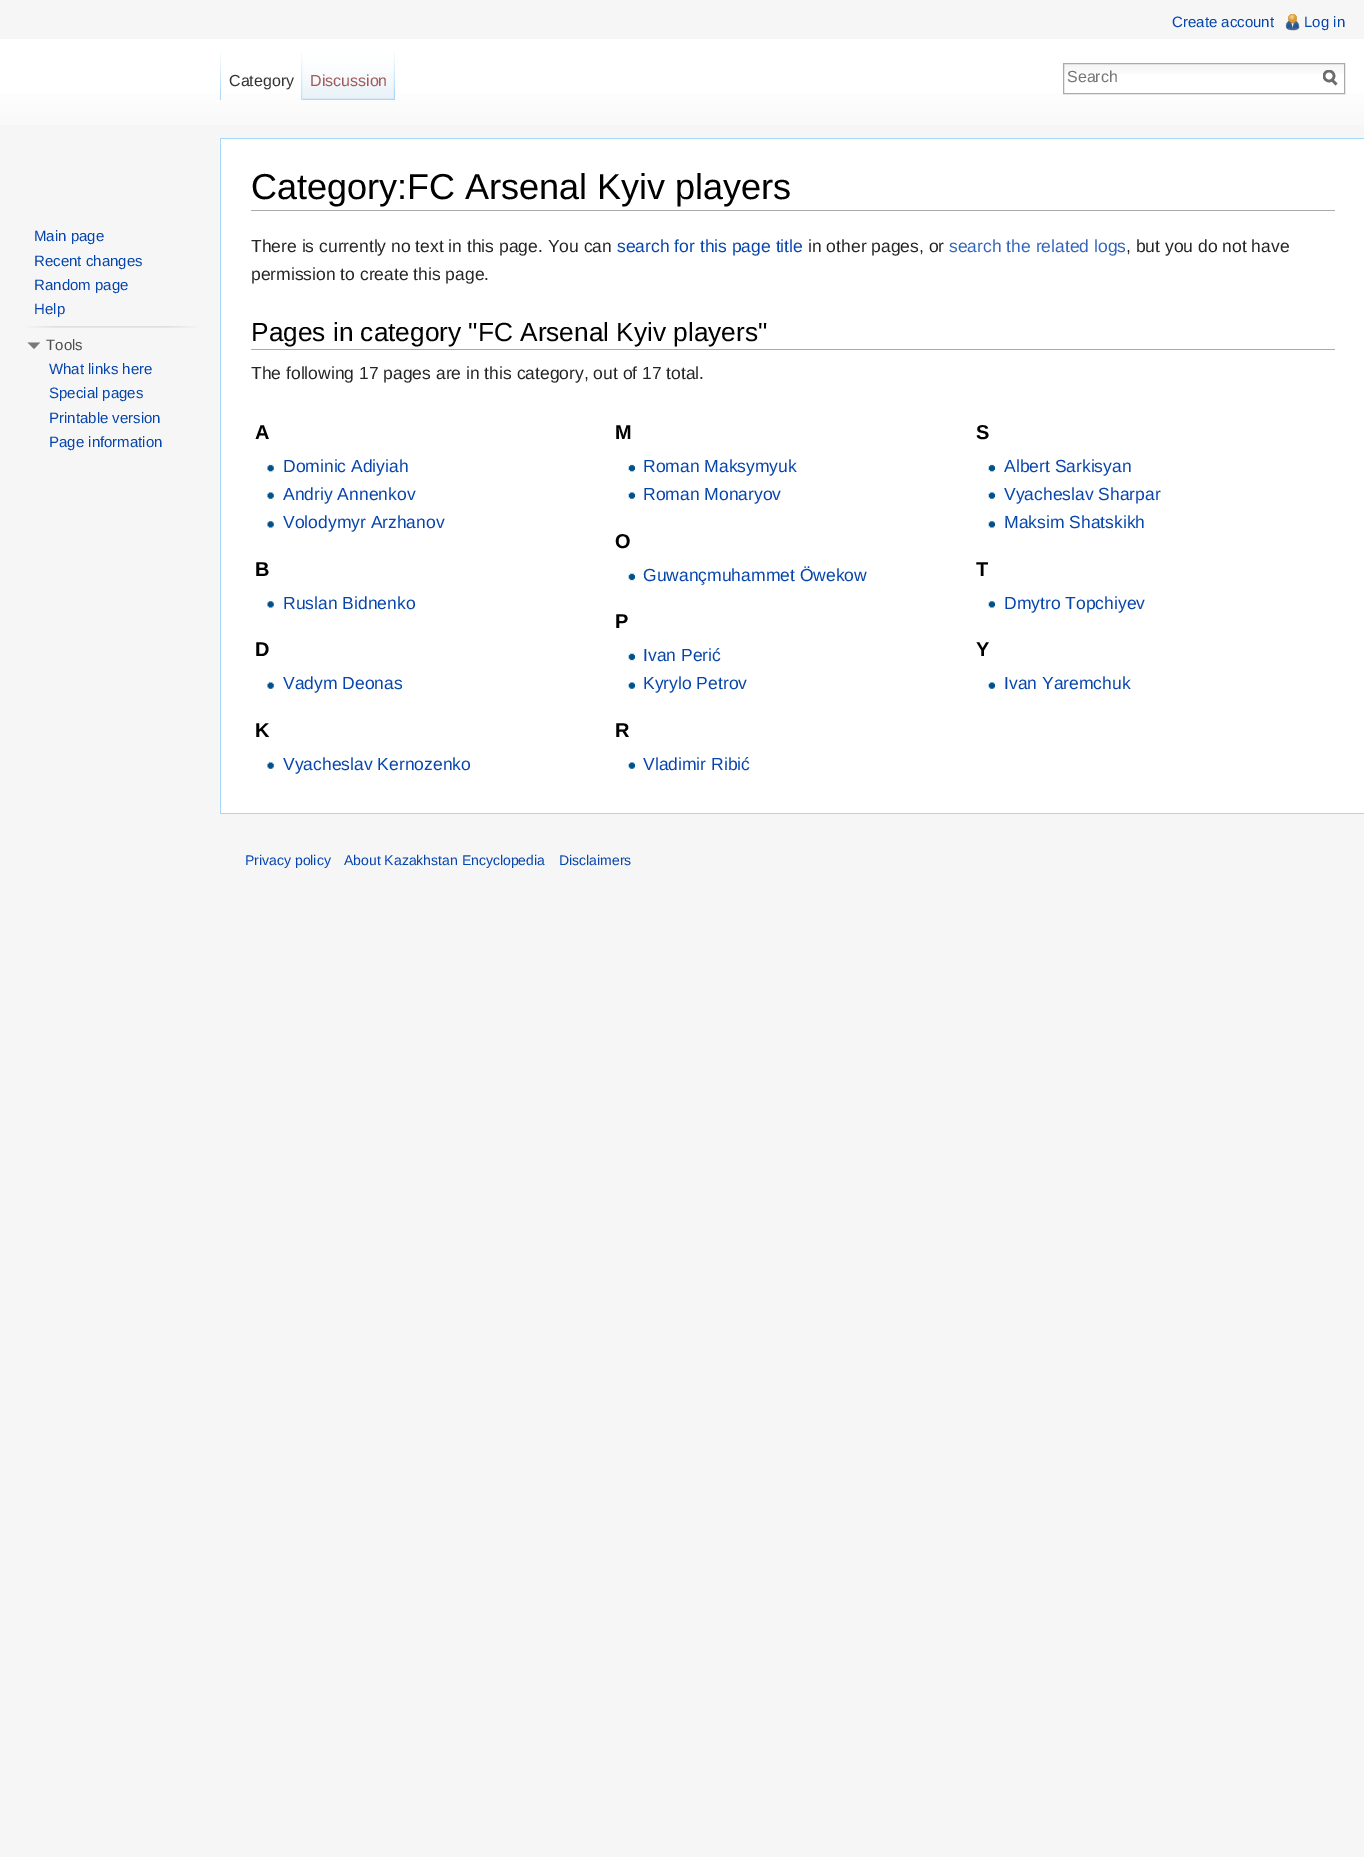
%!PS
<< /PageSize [1364 1857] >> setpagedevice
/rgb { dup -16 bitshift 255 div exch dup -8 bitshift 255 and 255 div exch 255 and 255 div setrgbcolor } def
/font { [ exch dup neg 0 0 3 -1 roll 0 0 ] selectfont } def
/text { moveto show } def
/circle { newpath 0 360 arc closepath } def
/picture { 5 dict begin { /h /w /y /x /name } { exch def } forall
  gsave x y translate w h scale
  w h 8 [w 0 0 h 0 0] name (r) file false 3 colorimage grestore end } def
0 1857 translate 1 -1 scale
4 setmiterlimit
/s1 { /LiberationSans-Regular 15 font 16#0645AD rgb } def
/s2 { /LiberationSans-Regular 16 font 16#333333 rgb } def
/s3 { /LiberationSans-Regular 16 font 16#A55858 rgb } def
/s4 { /LiberationSans-Regular 16 font 16#757575 rgb } def
/s5 { /LiberationSans-Regular 15 font 16#4D4D4D rgb } def
/s6 { /LiberationSans-Regular 36 font 16#000000 rgb } def
/s7 { /LiberationSans-Regular 17.5 font 16#252525 rgb } def
/s8 { /LiberationSans-Regular 17.5 font 16#0645AD rgb } def
/s9 { /LiberationSans-Regular 17.5 font 16#3366BB rgb } def
/s10 { /LiberationSans-Regular 26.25 font 16#000000 rgb } def
/s11 { /LiberationSans-Bold 20 font 16#000000 rgb } def
/s12 { /LiberationSans-Regular 14 font 16#0645AD rgb } def
16#F6F6F6 rgb
0 0 1364 1857 rectfill
s1
(Create account) 1172 27 text
(pic1.raw) 1285 14 15 17 picture
(Log in) 1304 27 text
gsave 0 39 moveto 1364 39 lineto 1364 125 lineto 0 125 lineto closepath clip newpath
<< /ShadingType 2 /ColorSpace /DeviceRGB /Coords [683 39 683 139] /Extend [true true] /Function << /FunctionType 3 /Domain [0 1] /Functions [<< /FunctionType 2 /Domain [0 1] /C0 [1 1 1] /C1 [1 1 1] /N 1 >> << /FunctionType 2 /Domain [0 1] /C0 [1 1 1] /C1 [0.965 0.965 0.965] /N 1 >>] /Bounds [0.5] /Encode [0 1 0 1] >> >> shfill grestore
(pic2.raw) 220 50 1 50 picture
(pic3.raw) 301 52 2 48 picture
s2
(Category) 229 86 text
(pic4.raw) 302 50 93 50 picture
(pic5.raw) 393 50 2 49 picture
s3
(Discussion) 310 86 text
(pic6.raw) 1062 64 282 10 picture
16#AAAAAA rgb
1063.5 63.5 281 30 rectstroke
s4
(Search) 1067 82 text
16#6C6C6C rgb
2.5 setlinewidth
1336.5 84.5 moveto 1331.5 79.5 lineto stroke
gsave
1323 70 15 16 rectclip
1329 76 5 circle stroke
grestore
s1
(Main page) 34 241 text
(Recent changes) 34 266 text
(Random page) 34 290 text
(Help) 34 314 text
(pic7.raw) 27 326 170 2 picture
16#797979 rgb
40 342.5 moveto 34 349 lineto 27.5 342.5 lineto closepath fill
s5
(Tools) 46 350 text
s1
(What links here) 49 374 text
(Special pages) 49 398 text
(Printable version) 49 423 text
(Page information) 49 447 text
16#FFFFFF rgb
221 139 1143 674 rectfill
16#A7D7F9 rgb
220 138 1144 1 rectfill
220 813 1144 1 rectfill
220 138 1 676 rectfill
16#AAAAAA rgb
251 210 1084 1 rectfill
s6
(Category:FC Arsenal Kyiv players) 251 199 text
s7
(There is currently no text in this page. You can) 251 252 text
s8
(search for this page title) 617 252 text
s7
(in other pages, or) 808 252 text
s9
(search the related logs) 949 252 text
s7
(, but you do not have) 1126 252 text
(permission to create this page.) 251 280 text
16#AAAAAA rgb
251 349 1084 1 rectfill
s10
(Pages in category "FC Arsenal Kyiv players") 251 341 text
s7
(The following 17 pages are in this category, out of 17 total.) 251 379 text
s11
(A) 255 439 text
(pic8.raw) 267 464 7 8 picture
s8
(Dominic Adiyiah) 283 472 text
(pic9.raw) 267 492 7 7 picture
(Andriy Annenkov) 283 500 text
(pic10.raw) 267 521 7 7 picture
(Volodymyr Arzhanov) 283 528 text
s11
(B) 255 576 text
(pic10.raw) 267 601 7 7 picture
s8
(Ruslan Bidnenko) 283 609 text
s11
(D) 255 656 text
(pic9.raw) 267 682 7 7 picture
s8
(Vadym Deonas) 283 689 text
s11
(K) 255 737 text
(pic9.raw) 267 762 7 7 picture
s8
(Vyacheslav Kernozenko) 283 770 text
s11
(M) 615 439 text
(pic11.raw) 628 464 7 8 picture
s8
(Roman Maksymyuk) 643 472 text
(pic12.raw) 628 492 7 7 picture
(Roman Monaryov) 643 500 text
s11
(O) 615 548 text
(pic13.raw) 628 573 7 8 picture
s8
(Guwançmuhammet Öwekow) 643 581 text
s11
(P) 615 628 text
(pic13.raw) 628 653 7 8 picture
s8
(Ivan Perić) 643 661 text
(pic12.raw) 628 682 7 7 picture
(Kyrylo Petrov) 643 689 text
s11
(R) 615 737 text
(pic12.raw) 628 762 7 7 picture
s8
(Vladimir Ribić) 643 770 text
s11
(S) 976 439 text
(pic11.raw) 988 464 7 8 picture
s8
(Albert Sarkisyan) 1004 472 text
(pic12.raw) 988 492 7 7 picture
(Vyacheslav Sharpar) 1004 500 text
(pic14.raw) 988 521 7 7 picture
(Maksim Shatskikh) 1004 528 text
s11
(T) 976 576 text
(pic14.raw) 988 601 7 7 picture
s8
(Dmytro Topchiyev) 1004 609 text
s11
(Y) 976 656 text
(pic12.raw) 988 682 7 7 picture
s8
(Ivan Yaremchuk) 1004 689 text
s12
(Privacy policy) 245 865 text
(About Kazakhstan Encyclopedia) 344 865 text
(Disclaimers) 559 865 text
showpage
